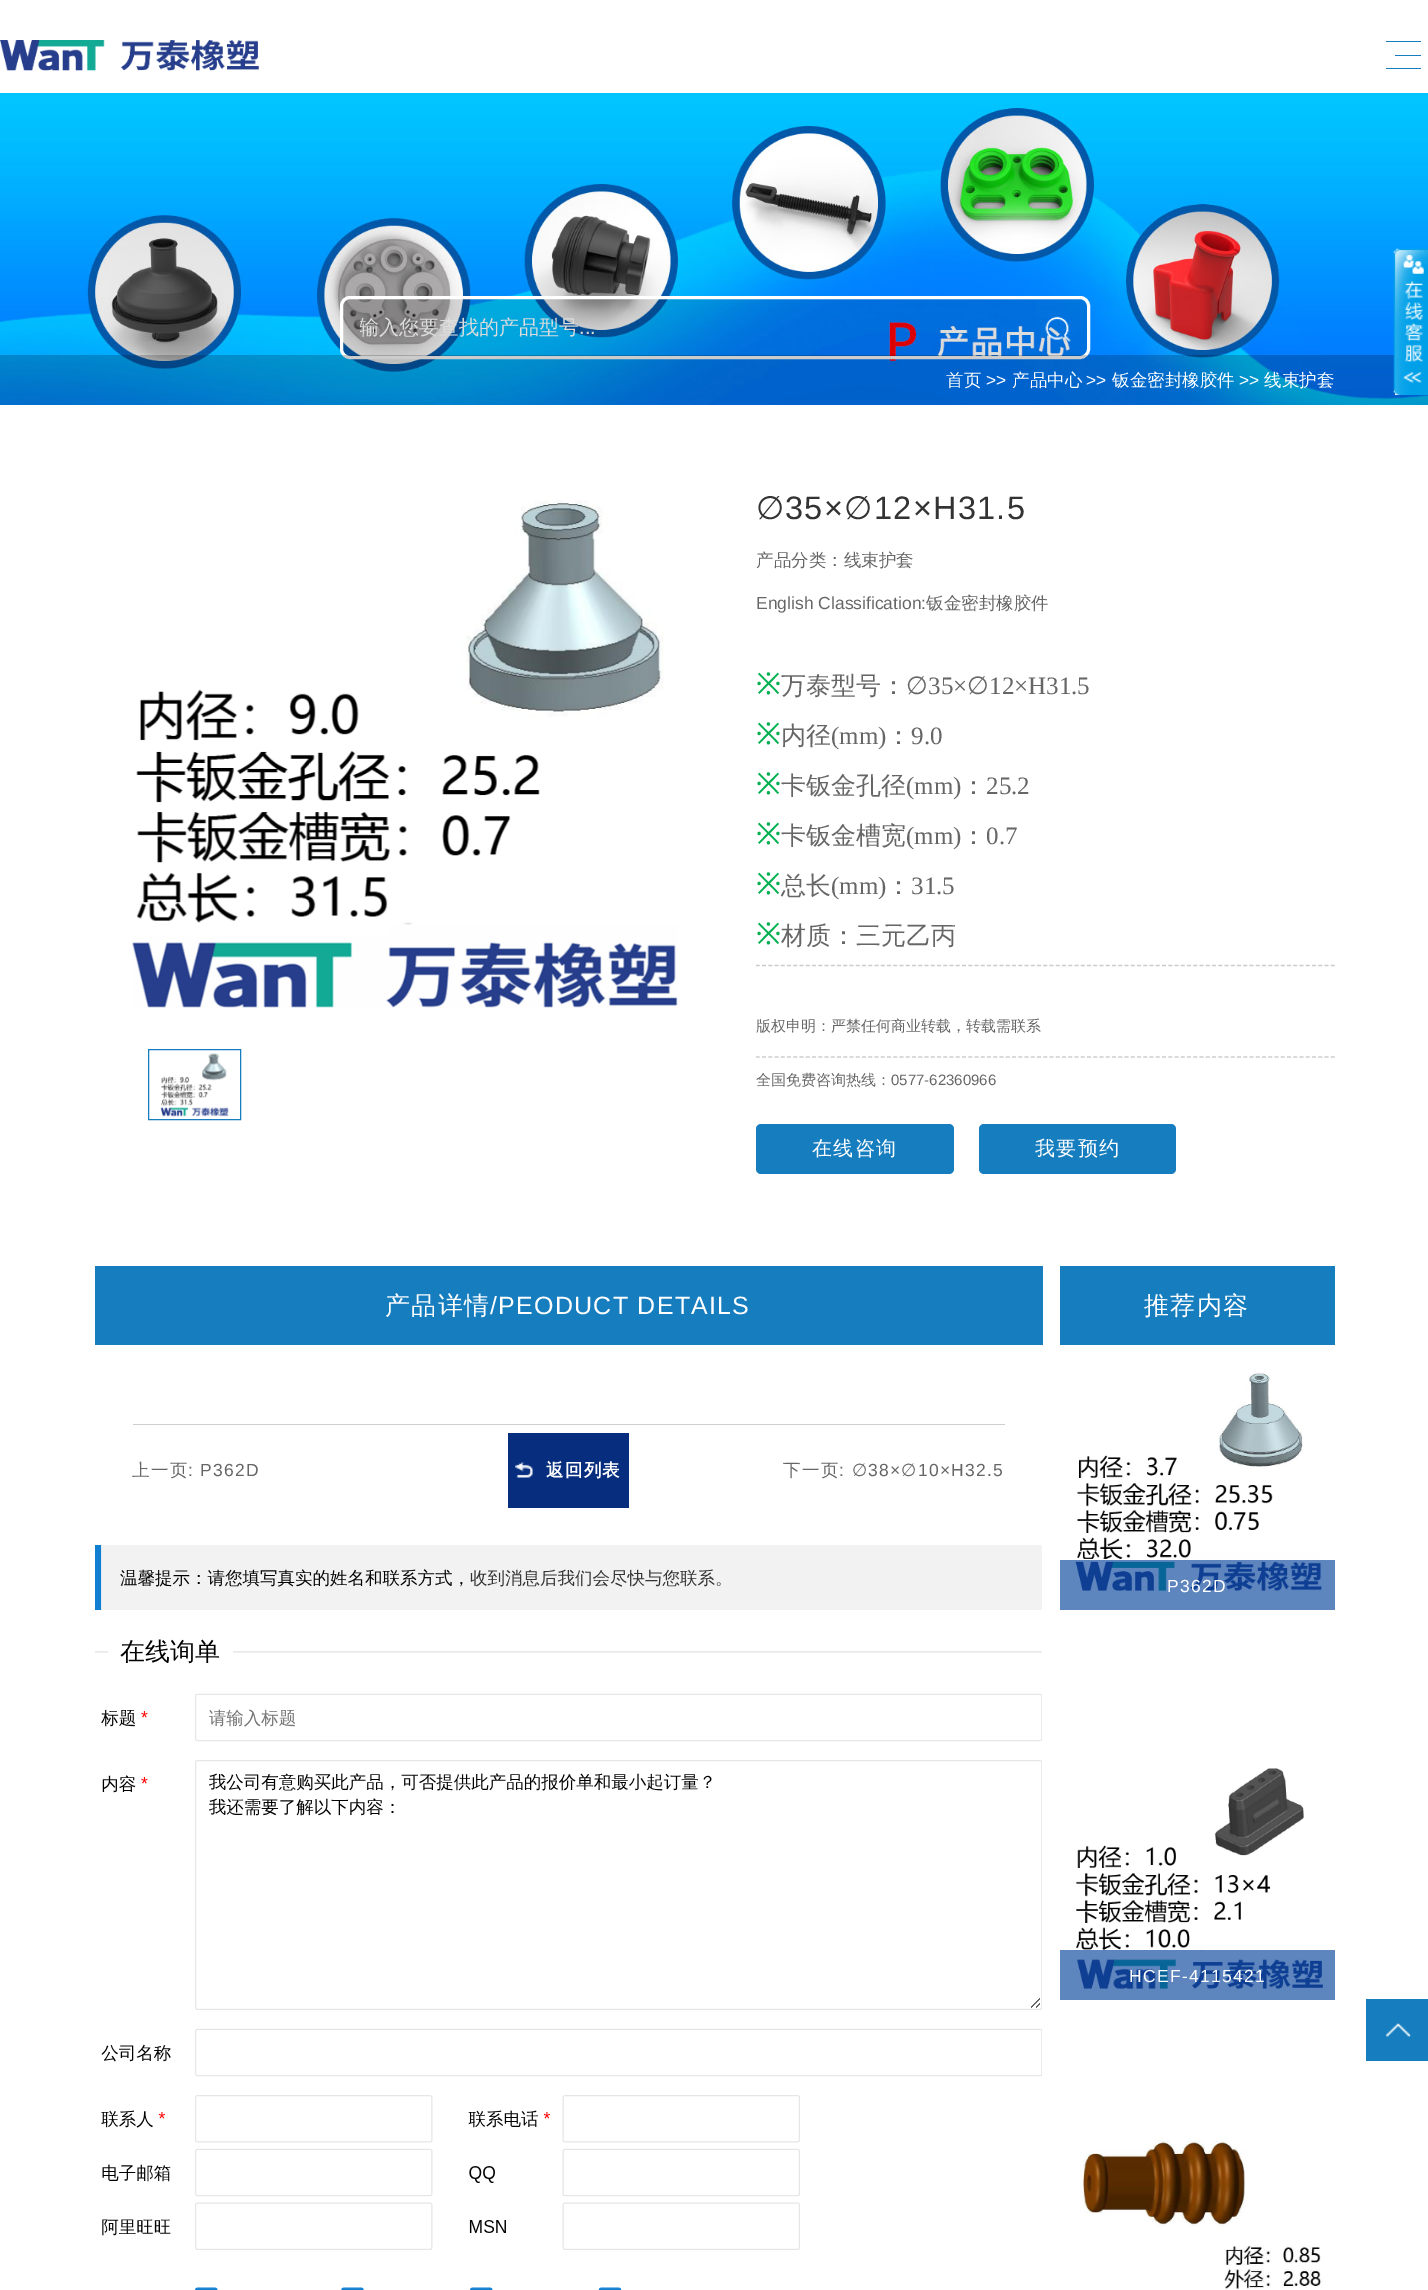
%!PS
<< /PageSize [1428 2290] /PageUsesTransparency true >> setpagedevice
/rgb { dup -16 bitshift 255 div exch dup -8 bitshift 255 and 255 div exch 255 and 255 div setrgbcolor } def
/font { [ exch dup neg 0 0 3 -1 roll 0 0 ] selectfont } def
/text { moveto show } def
/alpha { dup .setfillconstantalpha .setstrokeconstantalpha } def
/roundrect { 5 dict begin { /r /h /w /y /x } { exch def } forall
  x r add y moveto x w add y 2 copy h add r arct x w add y h add x 1 index r arct
  x y h add x y r arct x y 2 copy exch w add exch r arct closepath end } def
/picture { 5 dict begin { /h /w /y /x /name } { exch def } forall
  gsave x y translate w h scale
  w h 8 [w 0 0 h 0 0] name (r) file false 3 colorimage grestore end } def
0 .pushpdf14devicefilter
0 2290 translate 1 -1 scale
4 setmiterlimit
/s1 { /WenQuanYiZenHei-Medium 20 font 16#DDDDDD rgb } def
/s2 { /LiberationSans-Regular 20 font 16#DDDDDD rgb } def
/s3 { /WenQuanYiZenHei-Medium 17.5 font 16#FFFFFF rgb } def
/s4 { /LiberationSans-Regular 17.5 font 16#FFFFFF rgb } def
/s5 { /WenQuanYiZenHei-Medium 17.5 font 16#666666 rgb } def
/s6 { /LiberationSans-Regular 17.5 font 16#666666 rgb } def
/s7 { /NotoSans-Regular 30 font 16#00B050 rgb } def
/s8 { /WenQuanYiZenHei-Medium 25 font 16#666666 rgb } def
/s9 { /DejaVuSans-Regular 25 font 16#666666 rgb } def
/s10 { /LiberationSerif-Regular 25 font 16#666666 rgb } def
/s11 { /WenQuanYiZenHei-Medium 15 font 16#666666 rgb } def
/s12 { /LiberationSans-Regular 15 font 16#666666 rgb } def
16#FFFFFF rgb
0 0 1428 2290 rectfill
(pic1.raw) 0 40 259 31 picture
16#167DBF rgb
1395 55 26 1 rectfill
1386 41 35 1 rectfill
1386 68 35 1 rectfill
(pic2.raw) 0 93 1428 312 picture
0.13 alpha
16#000000 rgb
341.5 297.5 747 60 8.5 roundrect fill
1 alpha
16#FFFFFF rgb
3 setlinewidth
341.5 297.5 747 60 8.5 roundrect stroke
gsave
360 316 648 27 rectclip
s1
(输入您要查找的产品型号) 359 334 text
grestore
s2
(...) 579 334 text
(pic3.raw) 1045 316 26 26 picture
0.2 alpha
16#000000 rgb
0 355 1428 50 rectfill
1 alpha
s3
(首页) 946 386 text
s4
(>>) 986 386 text
s3
(产品中心) 1012 386 text
s4
(>>) 1086 386 text
s3
(钣金密封橡胶件) 1112 386 text
s4
(>>) 1239 386 text
s3
(线束护套) 1264 386 text
(pic4.raw) 1393 248 35 147 picture
(pic5.raw) 132 500 546 508 picture
16#167DBF rgb
1 setlinewidth
148.5 1049.5 92 70 rectstroke
(pic6.raw) 160 1053 69 64 picture
/DejaVuSans-Regular 32.5 font
16#333333 rgb
756 519 moveto 1.25 0 (∅) ashow
/LiberationSans-Regular 32.5 font
785 519 moveto 1.25 0 (35×) ashow
/DejaVuSans-Regular 32.5 font
844 519 moveto 1.25 0 (∅) ashow
/LiberationSans-Regular 32.5 font
874 519 moveto 1.25 0 (12×H31.5) ashow
s5
(产品分类：线束护套) 756 566 text
s6
(English Classification:) 756 609 text
s5
(钣金密封橡胶件) 926 609 text
16#CCCCCC rgb
1.2 setlinewidth
[3.75 2.5] 0 setdash
756 965.5 moveto 1335 965.5 lineto stroke
s7
(※) 756 694 text
s8
(万泰型号：) 781 694 text
s9
(∅) 906 694 text
s10
(35×) 928 694 text
s9
(∅) 967 694 text
s10
(12×H31.5) 989 694 text
s7
(※) 756 744 text
s8
(内径) 781 744 text
s10
(\(mm\)) 831 744 text
s8
(：) 886 744 text
s10
(9.0) 911 744 text
s7
(※) 756 794 text
s8
(卡钣金孔径) 781 794 text
s10
(\(mm\)) 906 794 text
s8
(：) 961 794 text
s10
(25.2) 986 794 text
s7
(※) 756 844 text
s8
(卡钣金槽宽) 781 844 text
s10
(\(mm\)) 906 844 text
s8
(：) 961 844 text
s10
(0.7) 986 844 text
s7
(※) 756 894 text
s8
(总长) 781 894 text
s10
(\(mm\)) 831 894 text
s8
(：) 886 894 text
s10
(31.5) 911 894 text
s7
(※) 756 944 text
s8
(材质：三元乙丙) 781 944 text
16#CCCCCC rgb
756 1057 moveto 1335 1057 lineto stroke
s11
(版权申明：严禁任何商业转载，转载需联系) 756 1031 text
(全国免费咨询热线：) 756 1085 text
s12
(0577-62360966) 891 1085 text
16#167DBF rgb
756 1124 198 50 5 roundrect fill
/WenQuanYiZenHei-Medium 20 font
16#FFFFFF rgb
812 1155 moveto 1.25 0 (在线咨询) ashow
16#167DBF rgb
979 1124 197 50 5 roundrect fill
16#FFFFFF rgb
1035 1155 moveto 1.25 0 (我要预约) ashow
16#167DBF rgb
95 1266 948 79 rectfill
/WenQuanYiZenHei-Medium 25 font
16#FFFFFF rgb
385 1314 moveto 1.25 0 (产品详情) ashow
/LiberationSans-Regular 25 font
490 1314 moveto 1.25 0 (/PEODUCT DETAILS) ashow
16#CFCFCF rgb
133 1424 872 1 rectfill
/WenQuanYiZenHei-Medium 17.5 font
16#666666 rgb
132 1476 moveto 1.25 0 (上一页) ashow
/LiberationSans-Regular 17.5 font
188 1476 moveto 1.25 0 (: P362D) ashow
16#062D7E rgb
508 1433 121 75 rectfill
(pic7.raw) 515 1462 18 16 picture
/WenQuanYiZenHei-Bold 17.5 font
16#FFFFFF rgb
546 1476 moveto 1.25 0 (返回列表) ashow
/WenQuanYiZenHei-Medium 17.5 font
16#666666 rgb
783 1476 moveto 1.25 0 (下一页) ashow
/LiberationSans-Regular 17.5 font
839 1476 moveto 1.25 0 (:) ashow
/DejaVuSans-Regular 17.5 font
852 1476 moveto 1.25 0 (∅) ashow
/LiberationSans-Regular 17.5 font
868 1476 moveto 1.25 0 (38×) ashow
/DejaVuSans-Regular 17.5 font
901 1476 moveto 1.25 0 (∅) ashow
/LiberationSans-Regular 17.5 font
918 1476 moveto 1.25 0 (10×H32.5) ashow
(pic8.raw) 95 1545 947 745 picture
16#167DBF rgb
1060 1266 275 79 rectfill
/WenQuanYiZenHei-Medium 25 font
16#FFFFFF rgb
1144 1314 moveto 1.25 0 (推荐内容) ashow
(pic9.raw) 1075 1372 247 219 picture
0.63 alpha
16#003F98 rgb
1060 1560 275 50 rectfill
/LiberationSans-Regular 17.5 font
1 alpha
16#FFFFFF rgb
1167 1592 moveto 1.25 0 (P362D) ashow
(pic10.raw) 1076 1768 247 221 picture
0.63 alpha
16#003F98 rgb
1060 1950 275 50 rectfill
1 alpha
16#FFFFFF rgb
1129 1982 moveto 1.25 0 (HCEF-4115421) ashow
(pic11.raw) 1080 2138 243 151 picture
16#167DBF rgb
1366 1999 62 62 rectfill
(pic12.raw) 1386 2023 25 14 picture
.poppdf14devicefilter showpage
